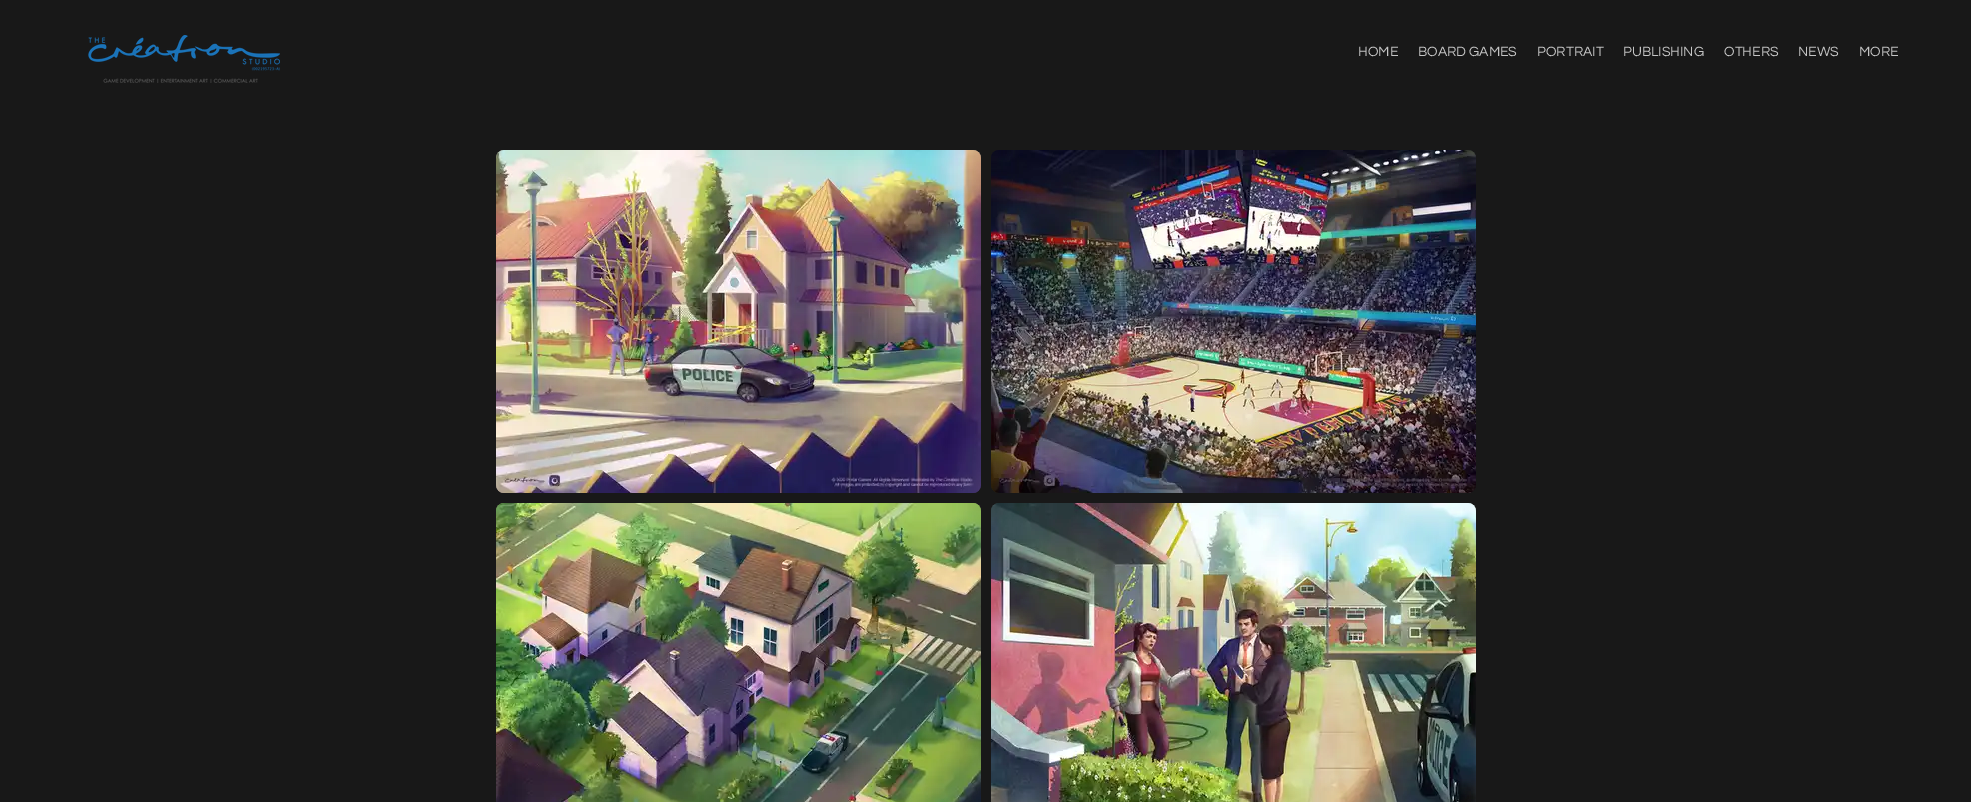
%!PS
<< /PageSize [1971 802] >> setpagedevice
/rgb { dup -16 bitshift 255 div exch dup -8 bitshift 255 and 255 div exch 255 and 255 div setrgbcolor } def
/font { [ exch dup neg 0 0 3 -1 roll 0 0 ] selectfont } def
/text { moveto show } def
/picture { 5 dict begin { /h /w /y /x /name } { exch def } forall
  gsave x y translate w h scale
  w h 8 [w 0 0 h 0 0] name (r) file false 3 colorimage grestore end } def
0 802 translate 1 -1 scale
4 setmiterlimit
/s1 { /Questrial-Regular 14 font 16#C5C5C5 rgb } def
16#181818 rgb
0 0 1971 802 rectfill
(pic1.raw) 88 35 192 48 picture
s1
(HOME) 1358 56 text
(BOARD GAMES) 1418 56 text
(PORTRAIT) 1537 56 text
(PUBLISHING) 1623 56 text
(OTHERS) 1724 56 text
(NEWS) 1798 56 text
(MORE) 1859 56 text
(pic2.raw) 496 150 485 343 picture
(pic3.raw) 496 150 485 343 picture
(pic4.raw) 991 150 485 343 picture
(pic5.raw) 991 150 485 343 picture
(pic6.raw) 496 503 485 8 picture
(pic7.raw) 496 503 485 299 picture
(pic8.raw) 991 503 485 8 picture
(pic9.raw) 991 503 485 299 picture
showpage
